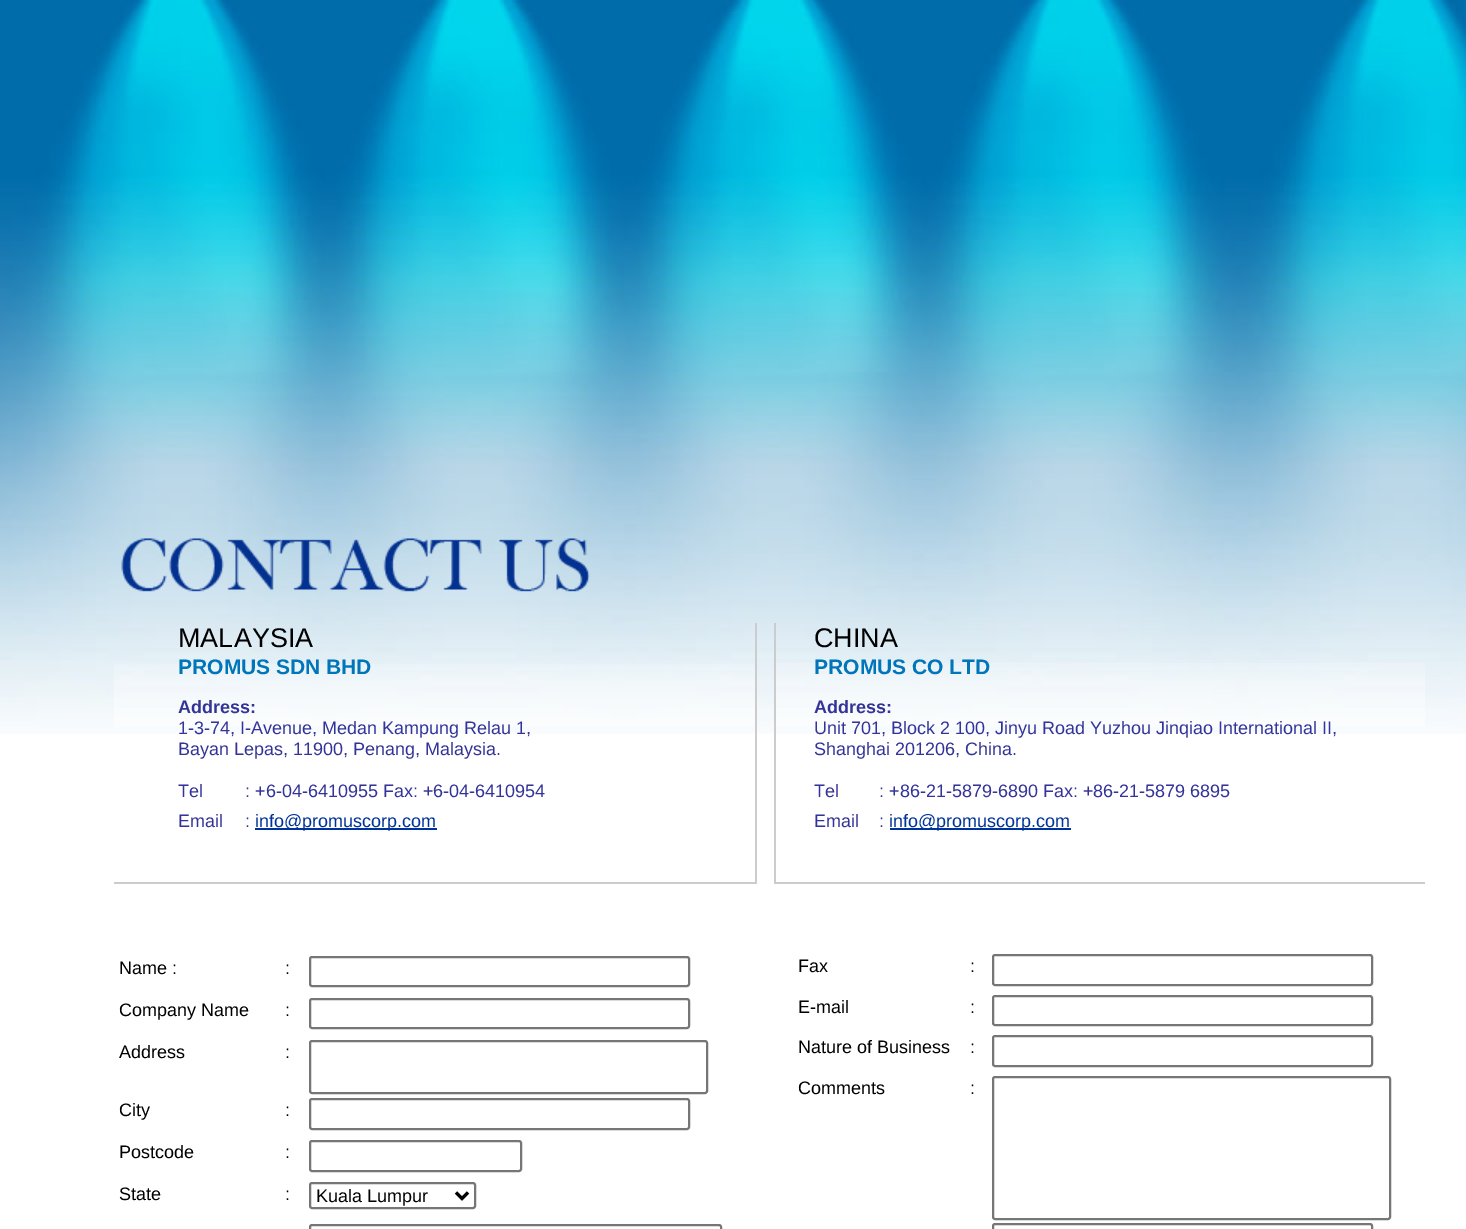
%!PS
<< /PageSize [1466 1229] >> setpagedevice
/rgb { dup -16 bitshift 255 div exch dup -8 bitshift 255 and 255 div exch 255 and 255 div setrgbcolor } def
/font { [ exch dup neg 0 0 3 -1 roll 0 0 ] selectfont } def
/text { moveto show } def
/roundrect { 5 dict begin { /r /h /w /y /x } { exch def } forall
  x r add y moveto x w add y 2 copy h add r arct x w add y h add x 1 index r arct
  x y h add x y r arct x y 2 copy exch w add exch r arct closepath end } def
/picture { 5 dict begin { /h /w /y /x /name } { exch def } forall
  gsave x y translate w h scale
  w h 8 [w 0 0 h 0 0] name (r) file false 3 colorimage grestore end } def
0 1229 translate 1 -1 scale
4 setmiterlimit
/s1 { /LiberationSans-Regular 27 font 16#000000 rgb } def
/s2 { /LiberationSans-Bold 21 font 16#0175B9 rgb } def
/s3 { /LiberationSans-Bold 18 font 16#333399 rgb } def
/s4 { /LiberationSans-Regular 18 font 16#333399 rgb } def
/s5 { /LiberationSans-Regular 18 font 16#003399 rgb } def
/s6 { /LiberationSans-Regular 18 font 16#000000 rgb } def
16#FFFFFF rgb
0 0 1466 1229 rectfill
(pic1.raw) 0 0 1466 734 picture
(pic2.raw) 121 538 469 54 picture
(pic3.raw) 114 664 641 63 picture
16#CCCCCC rgb
755 623 2 261 rectfill
114 882 642 2 rectfill
s1
(MALAYSIA) 178 647 text
s2
(PROMUS SDN BHD) 178 674 text
s3
(Address:) 178 713 text
s4
(1-3-74, I-Avenue, Medan Kampung Relau 1,) 178 734 text
(Bayan Lepas, 11900, Penang, Malaysia.) 178 755 text
(Tel) 178 797 text
(: +6-04-6410955 Fax: +6-04-6410954) 245 797 text
(Email) 178 827 text
(:) 245 827 text
16#003399 rgb
255 828 182 2 rectfill
(info@promuscorp.com) 255 827 text
(pic4.raw) 776 663 649 64 picture
16#CCCCCC rgb
774 882 651 2 rectfill
774 623 2 261 rectfill
s1
(CHINA) 814 647 text
s2
(PROMUS CO LTD) 814 674 text
s3
(Address:) 814 713 text
s4
(Unit 701, Block 2 100, Jinyu Road Yuzhou Jinqiao International II,) 814 734 text
(Shanghai 201206, China.) 814 755 text
(Tel) 814 797 text
(: +86-21-5879-6890 Fax: +86-21-5879 6895) 879 797 text
(Email) 814 827 text
(:) 879 827 text
16#003399 rgb
890 828 181 2 rectfill
(info@promuscorp.com) 889 827 text
s6
(Name :) 119 974 text
(:) 285 974 text
16#767676 rgb
2 setlinewidth
310 957 379 29 2 roundrect stroke
s6
(Company Name) 119 1016 text
(:) 285 1016 text
16#767676 rgb
310 999 379 29 2 roundrect stroke
s6
(Address) 119 1058 text
(:) 285 1058 text
16#767676 rgb
310 1041 397 52 2 roundrect stroke
s6
(City) 119 1116 text
(:) 285 1116 text
16#767676 rgb
310 1099 379 30 2 roundrect stroke
s6
(Postcode) 119 1158 text
(:) 285 1158 text
16#767676 rgb
310 1141 211 30 2 roundrect stroke
s6
(State) 119 1200 text
(:) 285 1200 text
16#767676 rgb
310 1183 165 25 2 roundrect stroke
16#000000 rgb
3 setlinewidth
456 1192.5 moveto 462 1198.5 lineto 468 1192.5 lineto stroke
(Kuala Lumpur) 316 1202 text
16#767676 rgb
2 setlinewidth
310 1225 411 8 2 roundrect stroke
s6
(Fax) 798 972 text
(:) 970 972 text
16#767676 rgb
993 955 379 30 2 roundrect stroke
s6
(E-mail) 798 1013 text
(:) 970 1013 text
16#767676 rgb
993 996 379 29 2 roundrect stroke
s6
(Nature of Business) 798 1053 text
(:) 970 1053 text
16#767676 rgb
993 1036 379 30 2 roundrect stroke
s6
(Comments) 798 1094 text
(:) 970 1094 text
16#767676 rgb
993 1077 397 142 2 roundrect stroke
993 1224 379 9 2 roundrect stroke
showpage
